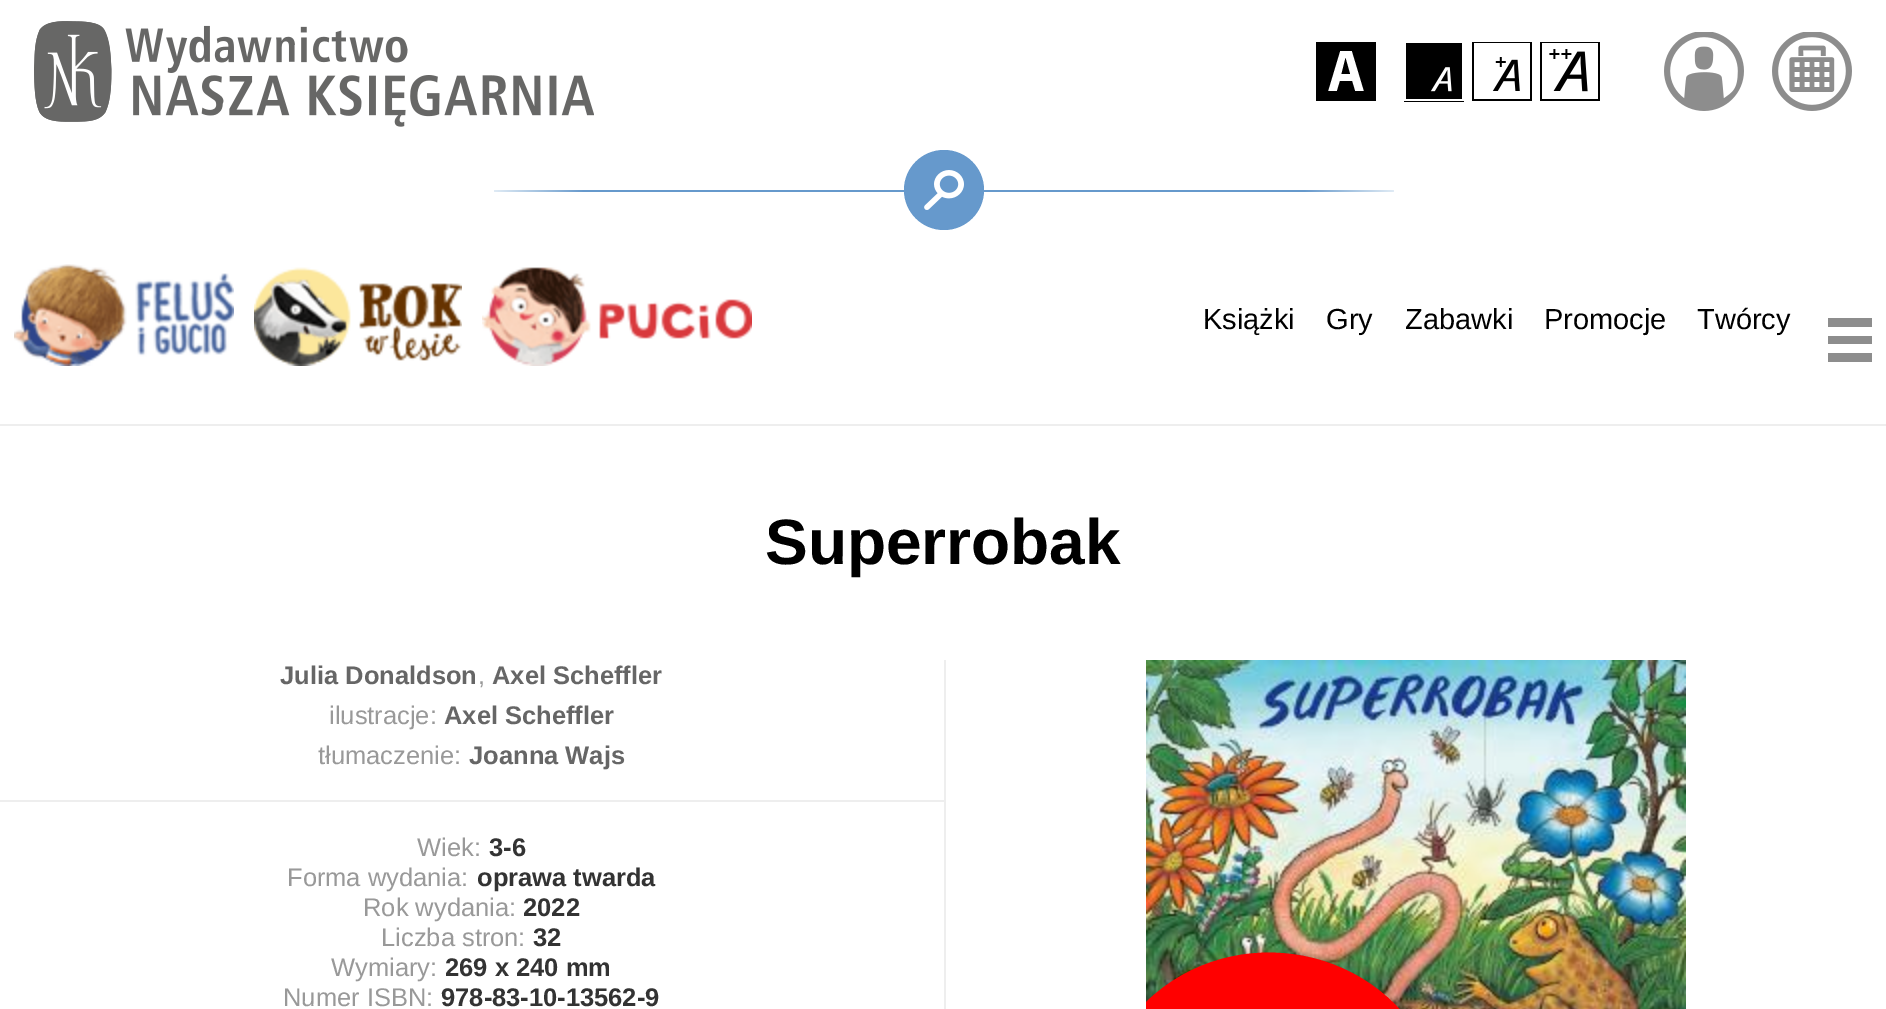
%!PS
<< /PageSize [1886 1009] >> setpagedevice
/rgb { dup -16 bitshift 255 div exch dup -8 bitshift 255 and 255 div exch 255 and 255 div setrgbcolor } def
/font { [ exch dup neg 0 0 3 -1 roll 0 0 ] selectfont } def
/text { moveto show } def
/circle { newpath 0 360 arc closepath } def
/picture { 5 dict begin { /h /w /y /x /name } { exch def } forall
  gsave x y translate w h scale
  w h 8 [w 0 0 h 0 0] name (r) file false 3 colorimage grestore end } def
0 1009 translate 1 -1 scale
4 setmiterlimit
/s1 { /LiberationSans-Regular 29 font 16#000000 rgb } def
/s2 { /LiberationSans-Bold 64 font 16#000000 rgb } def
/s3 { /LiberationSans-Bold 25.5 font 16#666666 rgb } def
/s4 { /LiberationSans-Regular 25.5 font 16#999999 rgb } def
/s5 { /LiberationSans-Bold 25.5 font 16#333333 rgb } def
16#FFFFFF rgb
0 0 1886 1009 rectfill
(pic1.raw) 34 21 560 106 picture
16#000000 rgb
1345.5 58 moveto 1341.5 74 lineto 1350 74 lineto closepath fill
gsave
1316 42 60 60 rectclip
1316 41 moveto 1316 101 lineto 1376 101 lineto 1376 41 lineto closepath 1355 91 moveto 1352 81 lineto 1340 81 lineto 1337 91 lineto 1328 91 lineto 1340 51 lineto 1352 51 lineto 1364 91 lineto closepath fill
grestore
1404 43 60 59 rectfill
(pic2.raw) 1404 42 60 59 picture
(pic3.raw) 1472 42 60 59 picture
(pic4.raw) 1540 42 60 59 picture
(pic5.raw) 1664 32 80 79 picture
(pic6.raw) 1772 32 80 79 picture
gsave 494 190 moveto 1394 190 lineto 1394 192 lineto 494 192 lineto closepath clip newpath
<< /ShadingType 2 /ColorSpace /DeviceRGB /Coords [494 190 1394 190] /Extend [true true] /Function << /FunctionType 3 /Domain [0 1] /Functions [<< /FunctionType 2 /Domain [0 1] /C0 [0.878 0.922 0.961] /C1 [0.4 0.6 0.8] /N 1 >> << /FunctionType 2 /Domain [0 1] /C0 [0.4 0.6 0.8] /C1 [0.4 0.6 0.8] /N 1 >> << /FunctionType 2 /Domain [0 1] /C0 [0.4 0.6 0.8] /C1 [0.878 0.922 0.961] /N 1 >>] /Bounds [0.1 0.9] /Encode [0 1 0 1 0 1] >> >> shfill grestore
16#6699CC rgb
944 190 40 circle fill
(pic7.raw) 924 170 40 40 picture
(pic8.raw) 14 264 220 102 picture
(pic9.raw) 254 267 208 99 picture
(pic10.raw) 482 267 270 99 picture
s1
(Książki) 1203 329 text
(Gry) 1326 329 text
(Zabawki) 1405 329 text
(Promocje) 1544 329 text
(Twórcy) 1697 329 text
16#8D8D8D rgb
1828 318 44 9 rectfill
1828 336 44 8 rectfill
1828 353 44 9 rectfill
16#EEEEEE rgb
0 424 1886 2 rectfill
s2
(Superrobak) 765 564 text
s3
(Julia Donaldson) 280 684 text
s4
(,) 478 684 text
s3
(Axel Scheffler) 492 684 text
16#EEEEEE rgb
944 660 2 349 rectfill
(pic11.raw) 1146 660 540 349 picture
16#FF0000 rgb
1445 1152 moveto 1449 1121 1444 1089 1432 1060 curveto 1384 945 1234 917 1146 1002 curveto 1146 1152 lineto closepath fill
s4
(ilustracje:) 329 724 text
s3
(Axel Scheffler) 444 724 text
s4
(tłumaczenie:) 318 764 text
s3
(Joanna Wajs) 469 764 text
16#EEEEEE rgb
0 800 944 2 rectfill
s4
(Wiek:) 417 856 text
s5
(3-6) 489 856 text
s4
(Forma wydania:) 287 886 text
s5
(oprawa twarda) 477 886 text
s4
(Rok wydania:) 363 916 text
s5
(2022) 523 916 text
s4
(Liczba stron:) 381 946 text
s5
(32) 533 946 text
s4
(Wymiary:) 331 976 text
s5
(269 x 240 mm) 445 976 text
s4
(Numer ISBN:) 283 1006 text
s5
(978-83-10-13562-9) 441 1006 text
showpage
